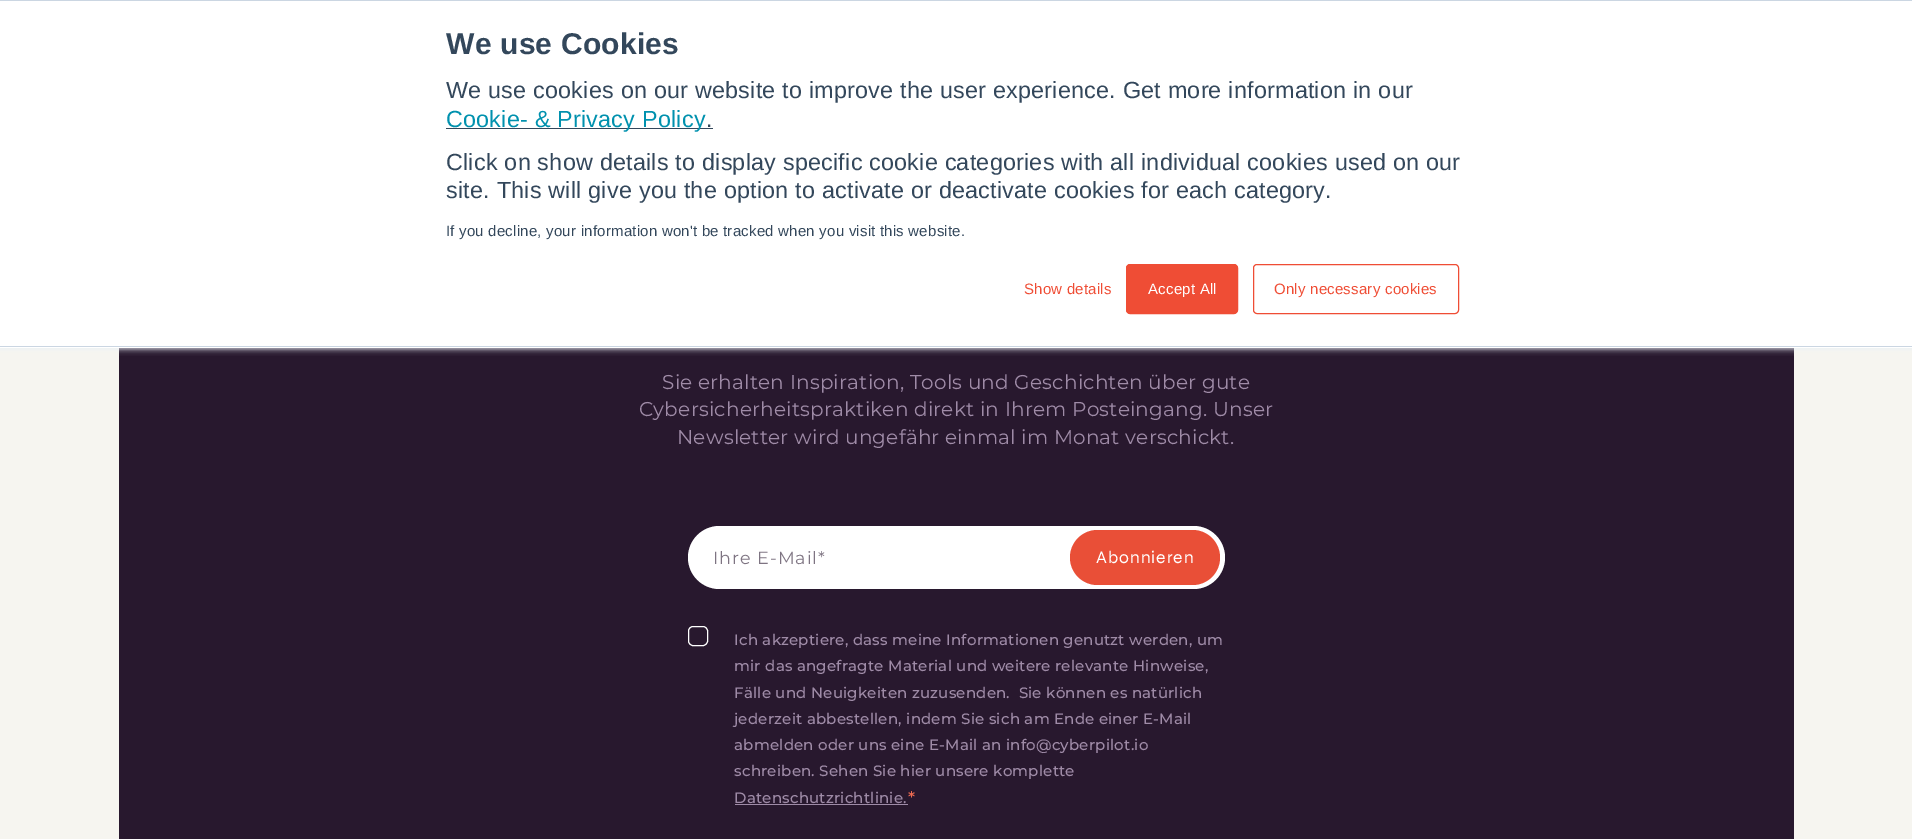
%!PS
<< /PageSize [1912 839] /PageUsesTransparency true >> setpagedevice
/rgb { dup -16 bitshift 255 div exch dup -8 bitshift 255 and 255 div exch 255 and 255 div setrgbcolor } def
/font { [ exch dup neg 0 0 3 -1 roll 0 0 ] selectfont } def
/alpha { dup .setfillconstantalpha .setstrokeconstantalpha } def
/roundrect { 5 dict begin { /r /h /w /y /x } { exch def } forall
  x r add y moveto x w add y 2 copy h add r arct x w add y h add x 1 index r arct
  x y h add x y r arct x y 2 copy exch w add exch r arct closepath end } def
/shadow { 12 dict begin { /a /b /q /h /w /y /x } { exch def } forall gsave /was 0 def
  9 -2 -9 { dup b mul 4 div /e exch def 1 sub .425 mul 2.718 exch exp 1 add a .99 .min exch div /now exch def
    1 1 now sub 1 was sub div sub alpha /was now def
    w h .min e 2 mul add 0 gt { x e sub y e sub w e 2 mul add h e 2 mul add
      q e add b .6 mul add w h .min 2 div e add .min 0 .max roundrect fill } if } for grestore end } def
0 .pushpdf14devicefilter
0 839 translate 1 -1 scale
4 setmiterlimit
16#F6F5F0 rgb
0 0 1912 839 rectfill
16#28182E rgb
119 348 1675 491 rectfill
16#EAF0F6 rgb
0 1 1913 348 0 3 1 shadow
16#FFFFFF rgb
0 1 1912 347 rectfill
16#CBD6E2 rgb
0 0 1912 1 rectfill
0 346 1912 1 rectfill
/LiberationSans-Bold 30 font
16#33475B rgb
446 54 moveto 0.22 0 (We use Cookies) ashow
/LiberationSans-Regular 23.35 font
446 98 moveto 0.22 0 (We use cookies on our website to improve the user experience. Get more information in our) ashow
446 128 267 1 rectfill
16#0091AE rgb
446 127 moveto 0.22 0 (Cookie- & Privacy Policy) ashow
16#33475B rgb
706 127 moveto 0.22 0 (.) ashow
446 170 moveto 0.22 0 (Click on show details to display specific cookie categories with all individual cookies used on our) ashow
446 198 moveto 0.22 0 (site. This will give you the option to activate or deactivate cookies for each category.) ashow
/LiberationSans-Regular 15 font
446 236 moveto 0.22 0 (If you decline, your information won't be tracked when you visit this website.) ashow
16#EF4D35 rgb
1024 294 moveto 0.22 0 (Show details) ashow
1126.5 264.5 111 49 3.5 roundrect gsave fill grestore
stroke
16#FFFFFF rgb
1148 294 moveto 0.22 0 (Accept All) ashow
16#EF4D35 rgb
1253.5 264.5 205 49 3.5 roundrect stroke
1274 294 moveto 0.22 0 (Only necessary cookies) ashow
/Montserrat-Regular 20 font
16#9F8BA7 rgb
662 389 moveto 0.22 0 (Sie erhalten Inspiration, Tools und Geschichten über gute) ashow
639 416 moveto 0.22 0 (Cybersicherheitspraktiken direkt in Ihrem Posteingang. Unser) ashow
677 444 moveto 0.22 0 (Newsletter wird ungefähr einmal im Monat verschickt.) ashow
16#FFFFFF rgb
688 526 537 63 31.5 roundrect fill
/Montserrat-Regular 17.5 font
16#7E7482 rgb
713 564 moveto 1 0 (Ihre E-Mail*) ashow
16#E94F37 rgb
1070 530 150 55 27.5 roundrect fill
/Syne-Regular 17.5 font
16#FFFFFF rgb
1096 563 moveto 1 0 (Abonnieren) ashow
688.5 626.5 19 19 4.5 roundrect stroke
/Montserrat-Medium 15 font
16#9F8BA7 rgb
734 645 moveto 0.22 0 (Ich akzeptiere, dass meine Informationen genutzt werden, um) ashow
734 671 moveto 0.22 0 (mir das angefragte Material und weitere relevante Hinweise,) ashow
734 698 moveto 0.22 0 (Fälle und Neuigkeiten zuzusenden.  Sie können es natürlich) ashow
734 724 moveto 0.22 0 (jederzeit abbestellen, indem Sie sich am Ende einer E-Mail) ashow
734 750 moveto 0.22 0 (abmelden oder uns eine E-Mail an info@cyberpilot.io) ashow
734 776 moveto 0.22 0 (schreiben. Sehen Sie hier unsere komplette) ashow
734 803 moveto 0.22 0 (Datenschutzrichtlinie.) ashow
735 804 173 1 rectfill
/Montserrat-Medium 17.5 font
16#EF6B51 rgb
908 804 moveto 0.22 0 (*) ashow
.poppdf14devicefilter showpage
